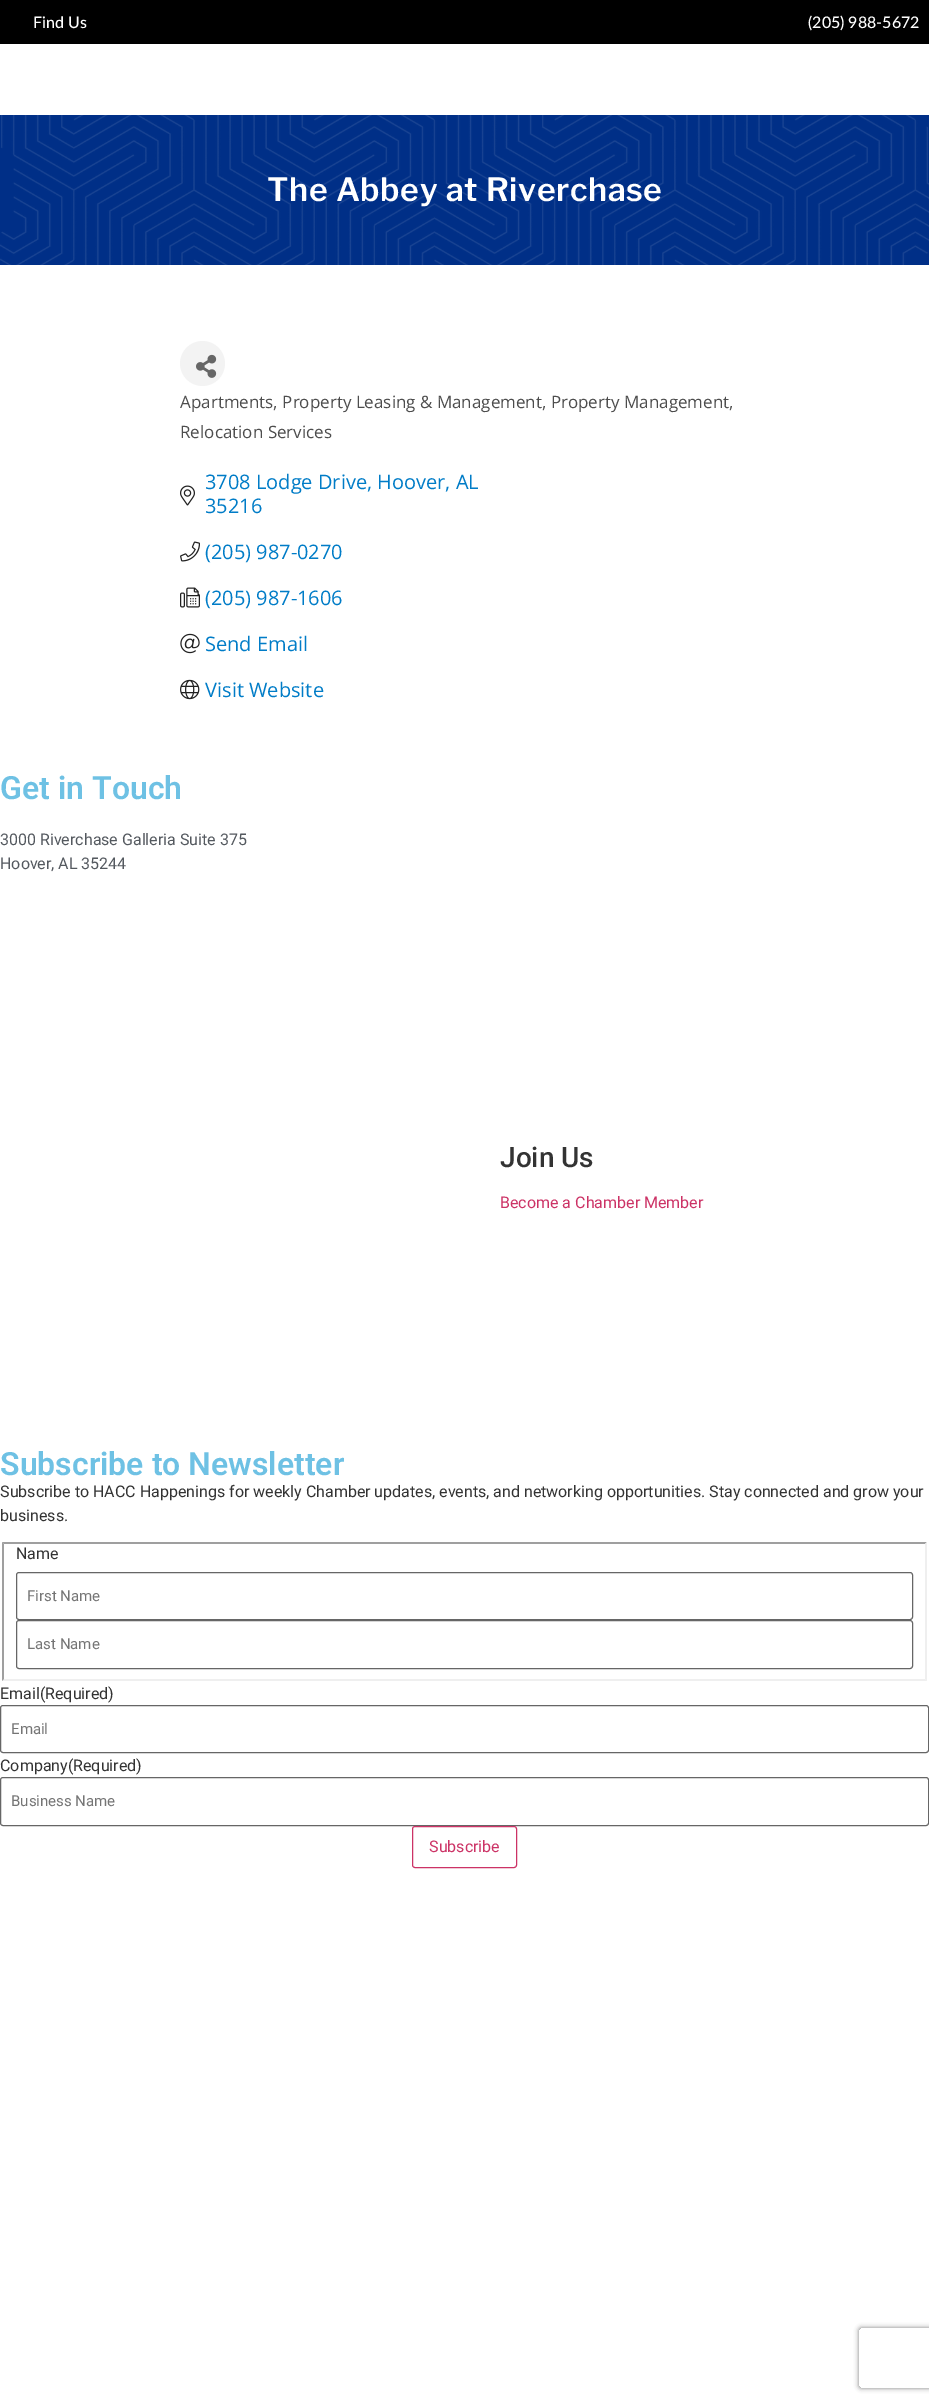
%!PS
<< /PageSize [929 2402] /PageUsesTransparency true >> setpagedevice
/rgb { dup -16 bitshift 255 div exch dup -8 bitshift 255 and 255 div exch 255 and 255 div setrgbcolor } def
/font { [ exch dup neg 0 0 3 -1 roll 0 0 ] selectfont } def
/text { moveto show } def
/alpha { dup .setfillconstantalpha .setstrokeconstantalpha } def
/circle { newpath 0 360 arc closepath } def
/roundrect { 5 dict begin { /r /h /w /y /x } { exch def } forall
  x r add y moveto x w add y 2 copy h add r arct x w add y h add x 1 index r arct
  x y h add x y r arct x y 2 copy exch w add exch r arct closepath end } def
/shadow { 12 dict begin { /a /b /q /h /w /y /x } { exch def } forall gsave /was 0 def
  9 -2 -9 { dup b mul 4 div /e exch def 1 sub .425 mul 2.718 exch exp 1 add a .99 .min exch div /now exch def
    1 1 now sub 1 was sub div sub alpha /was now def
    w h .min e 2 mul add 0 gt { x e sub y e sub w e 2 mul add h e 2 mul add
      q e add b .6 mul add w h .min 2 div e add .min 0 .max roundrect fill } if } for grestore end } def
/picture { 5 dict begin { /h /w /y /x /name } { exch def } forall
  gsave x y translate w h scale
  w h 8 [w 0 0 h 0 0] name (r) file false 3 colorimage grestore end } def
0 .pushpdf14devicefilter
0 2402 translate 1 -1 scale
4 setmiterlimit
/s1 { /Lato-Medium 16 font 16#FFFFFF rgb } def
/s2 { /OpenSans-Regular 17 font 16#4D4D4D rgb } def
/s3 { /OpenSans-Regular 20 font 16#007CC7 rgb } def
/s4 { /Roboto-SemiBold 32 font 16#6EC1E4 rgb } def
/s5 { /Roboto-Regular 16 font 16#54595F rgb } def
/s6 { /Roboto-Medium 28 font 16#333333 rgb } def
/s7 { /Roboto-Regular 16 font 16#CC3366 rgb } def
/s8 { /Roboto-Regular 16 font 16#333333 rgb } def
/s9 { /Roboto-Regular 15 font 16#757575 rgb } def
16#FFFFFF rgb
0 0 929 2402 rectfill
16#000000 rgb
0 0 929 44 rectfill
s1
(Find Us) 33 28 text
(\(205\) 988-5672) 808 28 text
16#002F87 rgb
0 115 929 150 rectfill
(pic1.raw) 0 115 929 150 picture
/LibreFranklin-SemiBold 32 font
16#FFFFFF rgb
267 201 moveto 0.5 0 32 0.6 0 (The Abbey at Riverchase) awidthshow
16#F3F3F3 rgb
202.5 363.5 22.5 circle fill
(pic2.raw) 196 354 21 24 picture
s2
(Apartments, Property Leasing & Management, Property Management,) 180 408 text
(Relocation Services) 180 438 text
(pic3.raw) 180 485 15 21 picture
s3
(3708 Lodge Drive, Hoover, AL) 205 489 text
(35216) 205 513 text
(pic4.raw) 180 541 20 21 picture
(\(205\) 987-0270) 205 559 text
(pic5.raw) 180 587 20 21 picture
(\(205\) 987-1606) 205 605 text
(pic6.raw) 180 633 20 21 picture
(Send Email) 205 651 text
(pic7.raw) 180 679 20 21 picture
(Visit Website) 205 697 text
s4
(Get in Touch) 0 799 text
s5
(3000 Riverchase Galleria Suite 375) 0 845 text
(Hoover, AL 35244) 0 869 text
s6
(Join Us) 500 1167 text
s7
(Become a Chamber Member) 500 1208 text
s4
(Subscribe to Newsletter) 0 1475 text
s8
(Subscribe to HACC Happenings for weekly Chamber updates, events, and networking opportunities. Stay connected and grow your) 0 1497 text
(business.) 0 1521 text
16#9F9F9F rgb
2 1542 moveto 927 1542 lineto 925 1544 lineto 4 1544 lineto closepath fill
16#EFEFEF rgb
927 1542 moveto 927 1681 lineto 925 1679 lineto 925 1544 lineto closepath fill
927 1681 moveto 2 1681 lineto 4 1679 lineto 925 1679 lineto closepath fill
16#9F9F9F rgb
2 1681 moveto 2 1542 lineto 4 1544 lineto 4 1679 lineto closepath fill
s8
(Name) 16 1559 text
16#666666 rgb
16.5 1572.5 896 47 2.5 roundrect stroke
s9
(First Name) 27 1601 text
16#666666 rgb
16.5 1620.5 896 48 2.5 roundrect stroke
s9
(Last Name) 27 1649 text
s8
(Email\(Required\)) 0 1699 text
16#666666 rgb
0.5 1705.5 928 47 2.5 roundrect stroke
s9
(Email) 11 1734 text
s8
(Company\(Required\)) 0 1771 text
16#666666 rgb
0.5 1777.5 928 48 2.5 roundrect stroke
s9
(Business Name) 11 1806 text
16#CC3366 rgb
412.5 1826.5 104 41 2.5 roundrect stroke
s7
(Subscribe) 429 1852 text
gsave
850 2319 moveto 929 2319 lineto 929 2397 lineto 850 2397 lineto closepath 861 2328 moveto 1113 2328 lineto 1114 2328 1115 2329 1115 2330 curveto 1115 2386 lineto 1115 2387 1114 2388 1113 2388 curveto 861 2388 lineto 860 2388 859 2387 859 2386 curveto 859 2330 lineto 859 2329 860 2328 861 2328 curveto closepath eoclip newpath
16#808080 rgb
859 2328 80 60 2 2.5 1 shadow
grestore
.poppdf14devicefilter showpage
